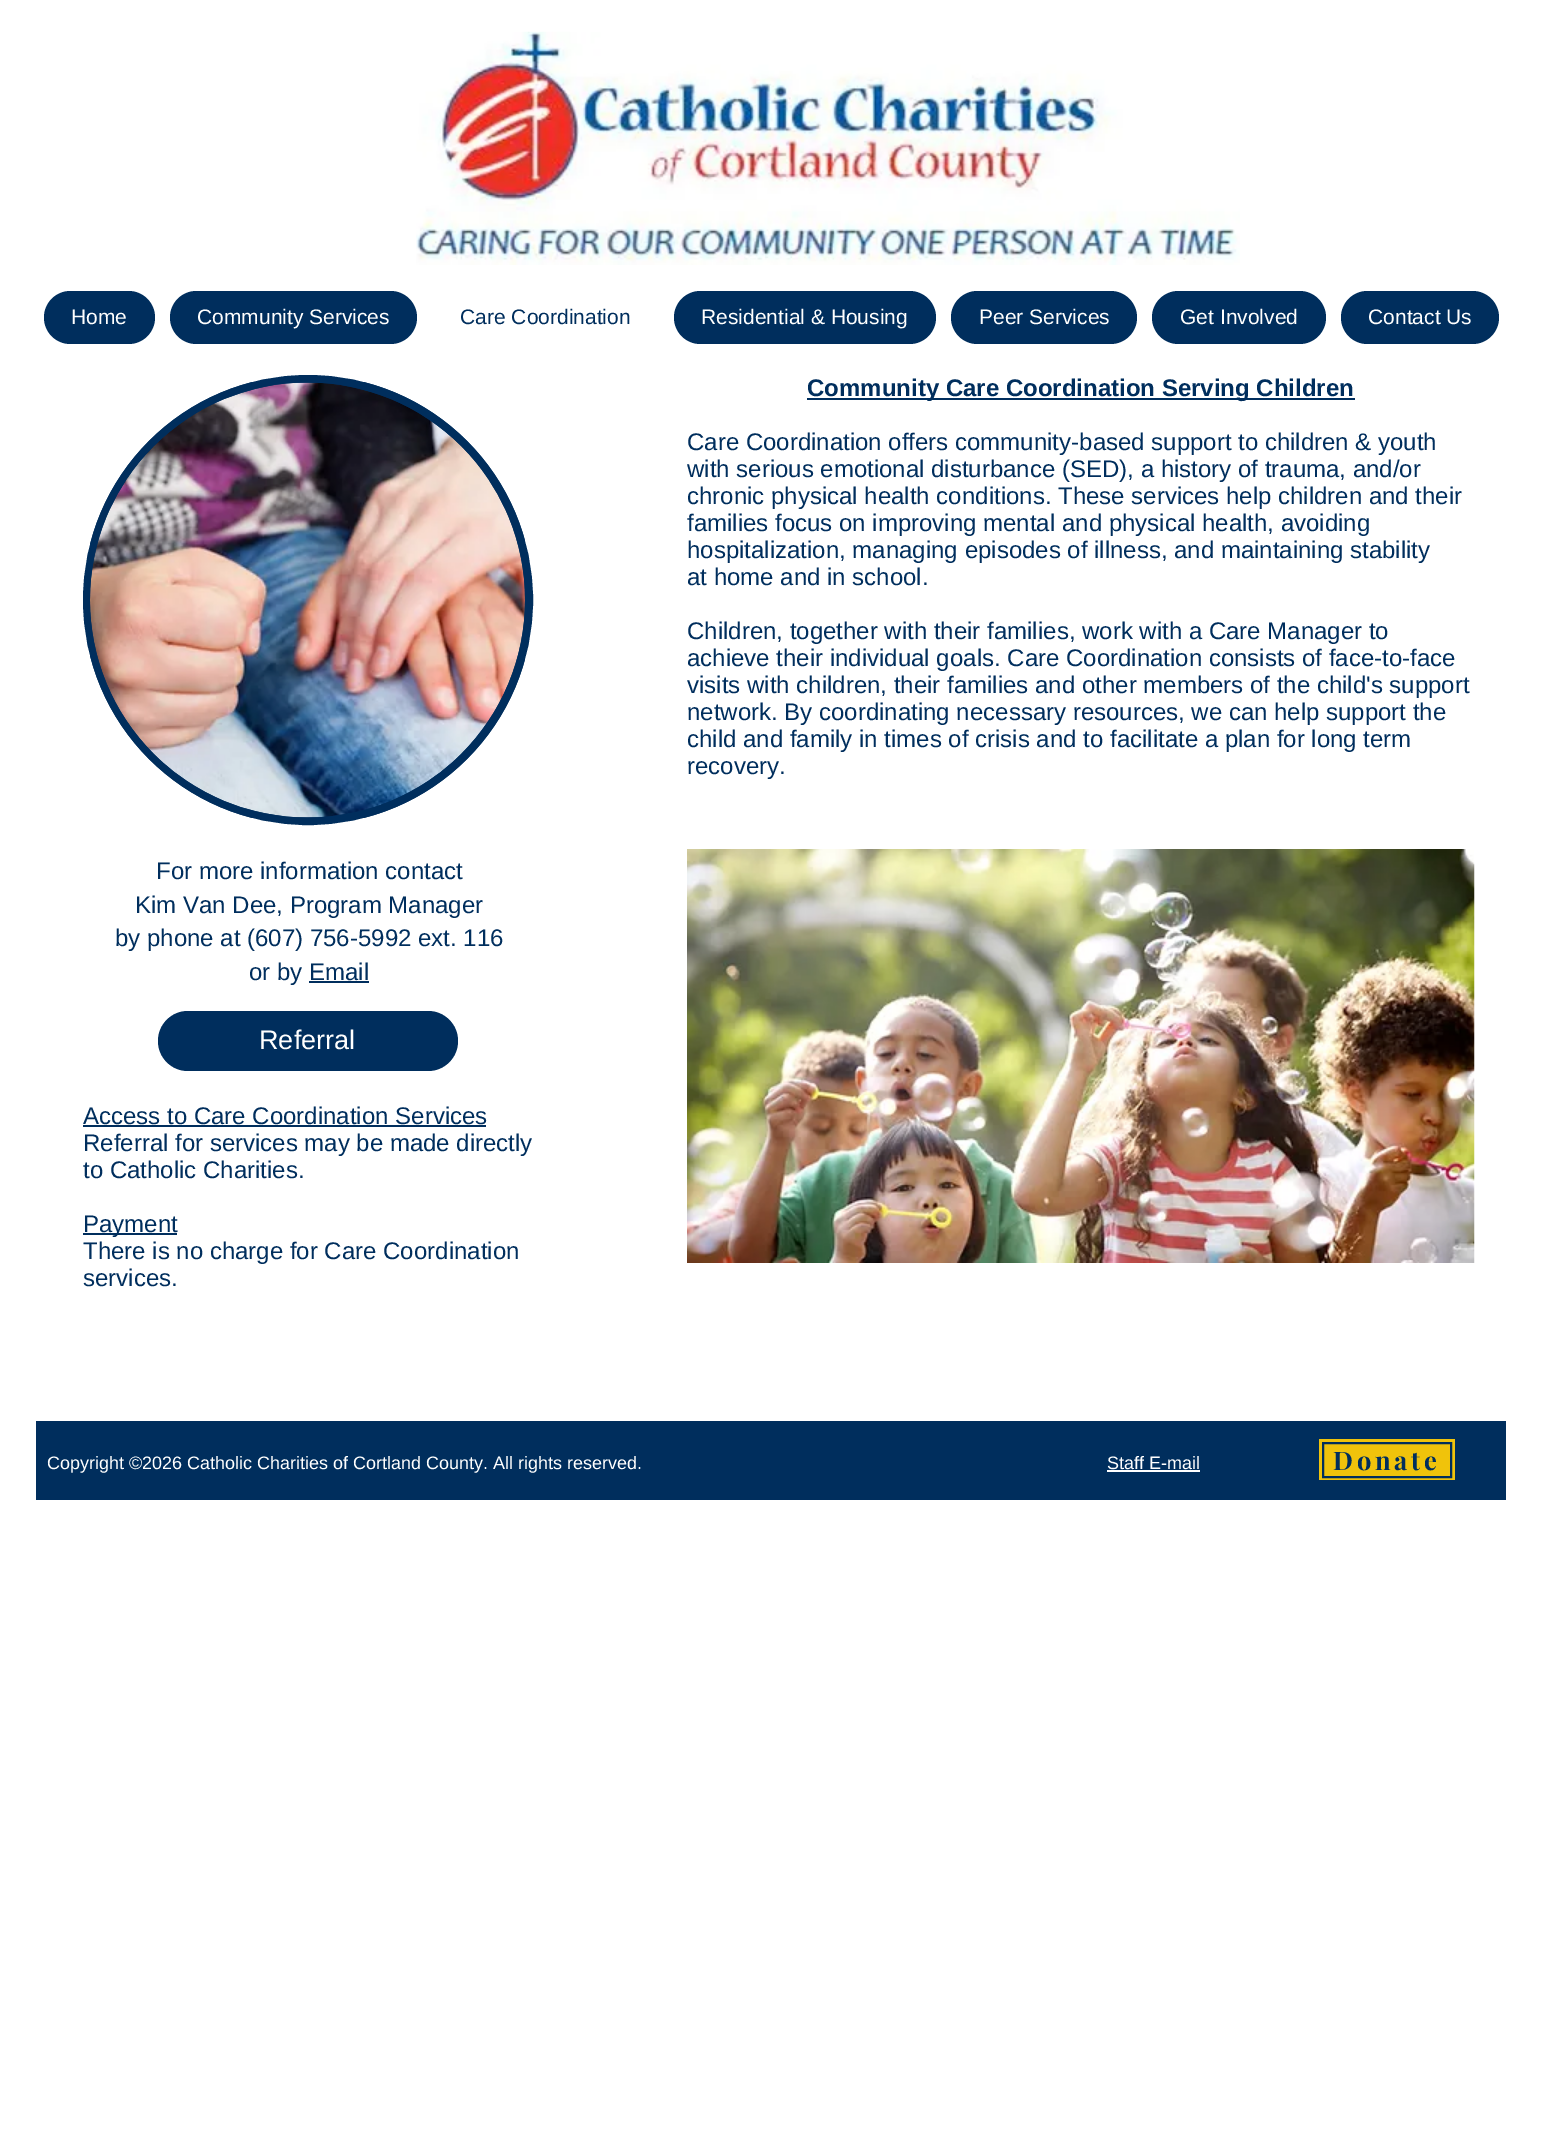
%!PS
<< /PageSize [1541 2144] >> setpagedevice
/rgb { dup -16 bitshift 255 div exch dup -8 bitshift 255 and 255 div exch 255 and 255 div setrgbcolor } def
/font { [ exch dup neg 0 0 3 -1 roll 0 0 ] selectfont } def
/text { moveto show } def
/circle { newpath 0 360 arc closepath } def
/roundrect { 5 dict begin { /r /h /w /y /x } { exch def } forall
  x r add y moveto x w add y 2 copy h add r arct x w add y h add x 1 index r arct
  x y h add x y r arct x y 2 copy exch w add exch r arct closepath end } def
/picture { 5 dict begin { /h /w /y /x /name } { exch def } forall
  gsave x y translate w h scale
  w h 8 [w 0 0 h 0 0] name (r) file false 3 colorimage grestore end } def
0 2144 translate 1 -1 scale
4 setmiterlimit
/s1 { /LiberationSans-Regular 21 font 16#FFFFFF rgb } def
/s2 { /LiberationSans-Regular 21 font 16#002E5D rgb } def
/s3 { /LiberationSans-Bold 24 font 16#002E5D rgb } def
/s4 { /LiberationSans-Regular 24 font 16#002E5D rgb } def
/s5 { /LiberationSans-Regular 27 font 16#FFFFFF rgb } def
/s6 { /LiberationSans-Regular 18 font 16#FFFFFF rgb } def
16#FFFFFF rgb
0 0 1541 2144 rectfill
(pic1.raw) 416 31 824 234 picture
16#002E5D rgb
44 291 111 53 26.5 roundrect fill
s1
(Home) 71 324 text
16#002E5D rgb
170 291 247 53 26.5 roundrect fill
s1
(Community Services) 197 324 text
s2
(Care Coordination) 460 324 text
674 291 262 53 26.5 roundrect fill
s1
(Residential & Housing) 701 324 text
16#002E5D rgb
951 291 186 53 26.5 roundrect fill
s1
(Peer Services) 979 324 text
16#002E5D rgb
1152 291 174 53 26.5 roundrect fill
s1
(Get Involved) 1180 324 text
16#002E5D rgb
1341 291 158 53 26.5 roundrect fill
s1
(Contact Us) 1368 324 text
16#002E5D rgb
308 600 221 circle gsave fill grestore
8 setlinewidth
stroke
(pic2.raw) 90 382 435 436 picture
807 398 548 2 rectfill
s3
(Community Care Coordination Serving Children) 807 396 text
s4
(Care Coordination offers community-based support to children & youth) 687 450 text
(with serious emotional disturbance \(SED\), a history of trauma, and/or) 687 477 text
(chronic physical health conditions. These services help children and their) 687 504 text
(families focus on improving mental and physical health, avoiding) 687 531 text
(hospitalization, managing episodes of illness, and maintaining stability) 687 558 text
(at home and in school.) 687 585 text
(Children, together with their families, work with a Care Manager to) 687 639 text
(achieve their individual goals. Care Coordination consists of face-to-face) 687 666 text
(visits with children, their families and other members of the child's support) 687 693 text
(network. By coordinating necessary resources, we can help support the) 687 720 text
(child and family in times of crisis and to facilitate a plan for long term) 687 747 text
(recovery.) 687 774 text
(For more information contact) 156 879 text
(Kim Van Dee, Program Manager) 135 913 text
(by phone at \(607\) 756-5992 ext. 116) 115 946 text
(or by Email) 249 980 text
309 981 60 2 rectfill
(pic3.raw) 687 849 788 414 picture
158 1011 300 60 30 roundrect fill
s5
(Referral) 259 1049 text
s4
(Access to Care Coordination Services) 83 1124 text
83 1125 403 2 rectfill
(Referral for services may be made directly) 83 1151 text
(to Catholic Charities.) 83 1178 text
83 1233 94 2 rectfill
(Payment) 83 1232 text
(There is no charge for Care Coordination) 83 1259 text
(services.) 83 1286 text
36 1421 1470 79 rectfill
s6
(Copyright ©2026 Catholic Charities of Cortland County. All rights reserved.) 47 1469 text
(Staff E-mail) 1107 1469 text
1107 1470 93 2 rectfill
16#F0C30B rgb
1319 1439 136 41 rectfill
16#002E5D rgb
2 setlinewidth
1323 1443 128 34 rectstroke
/PlayfairDisplay-Bold 25.5 font
1333 1470 moveto 3.75 0 (Donate) ashow
showpage
